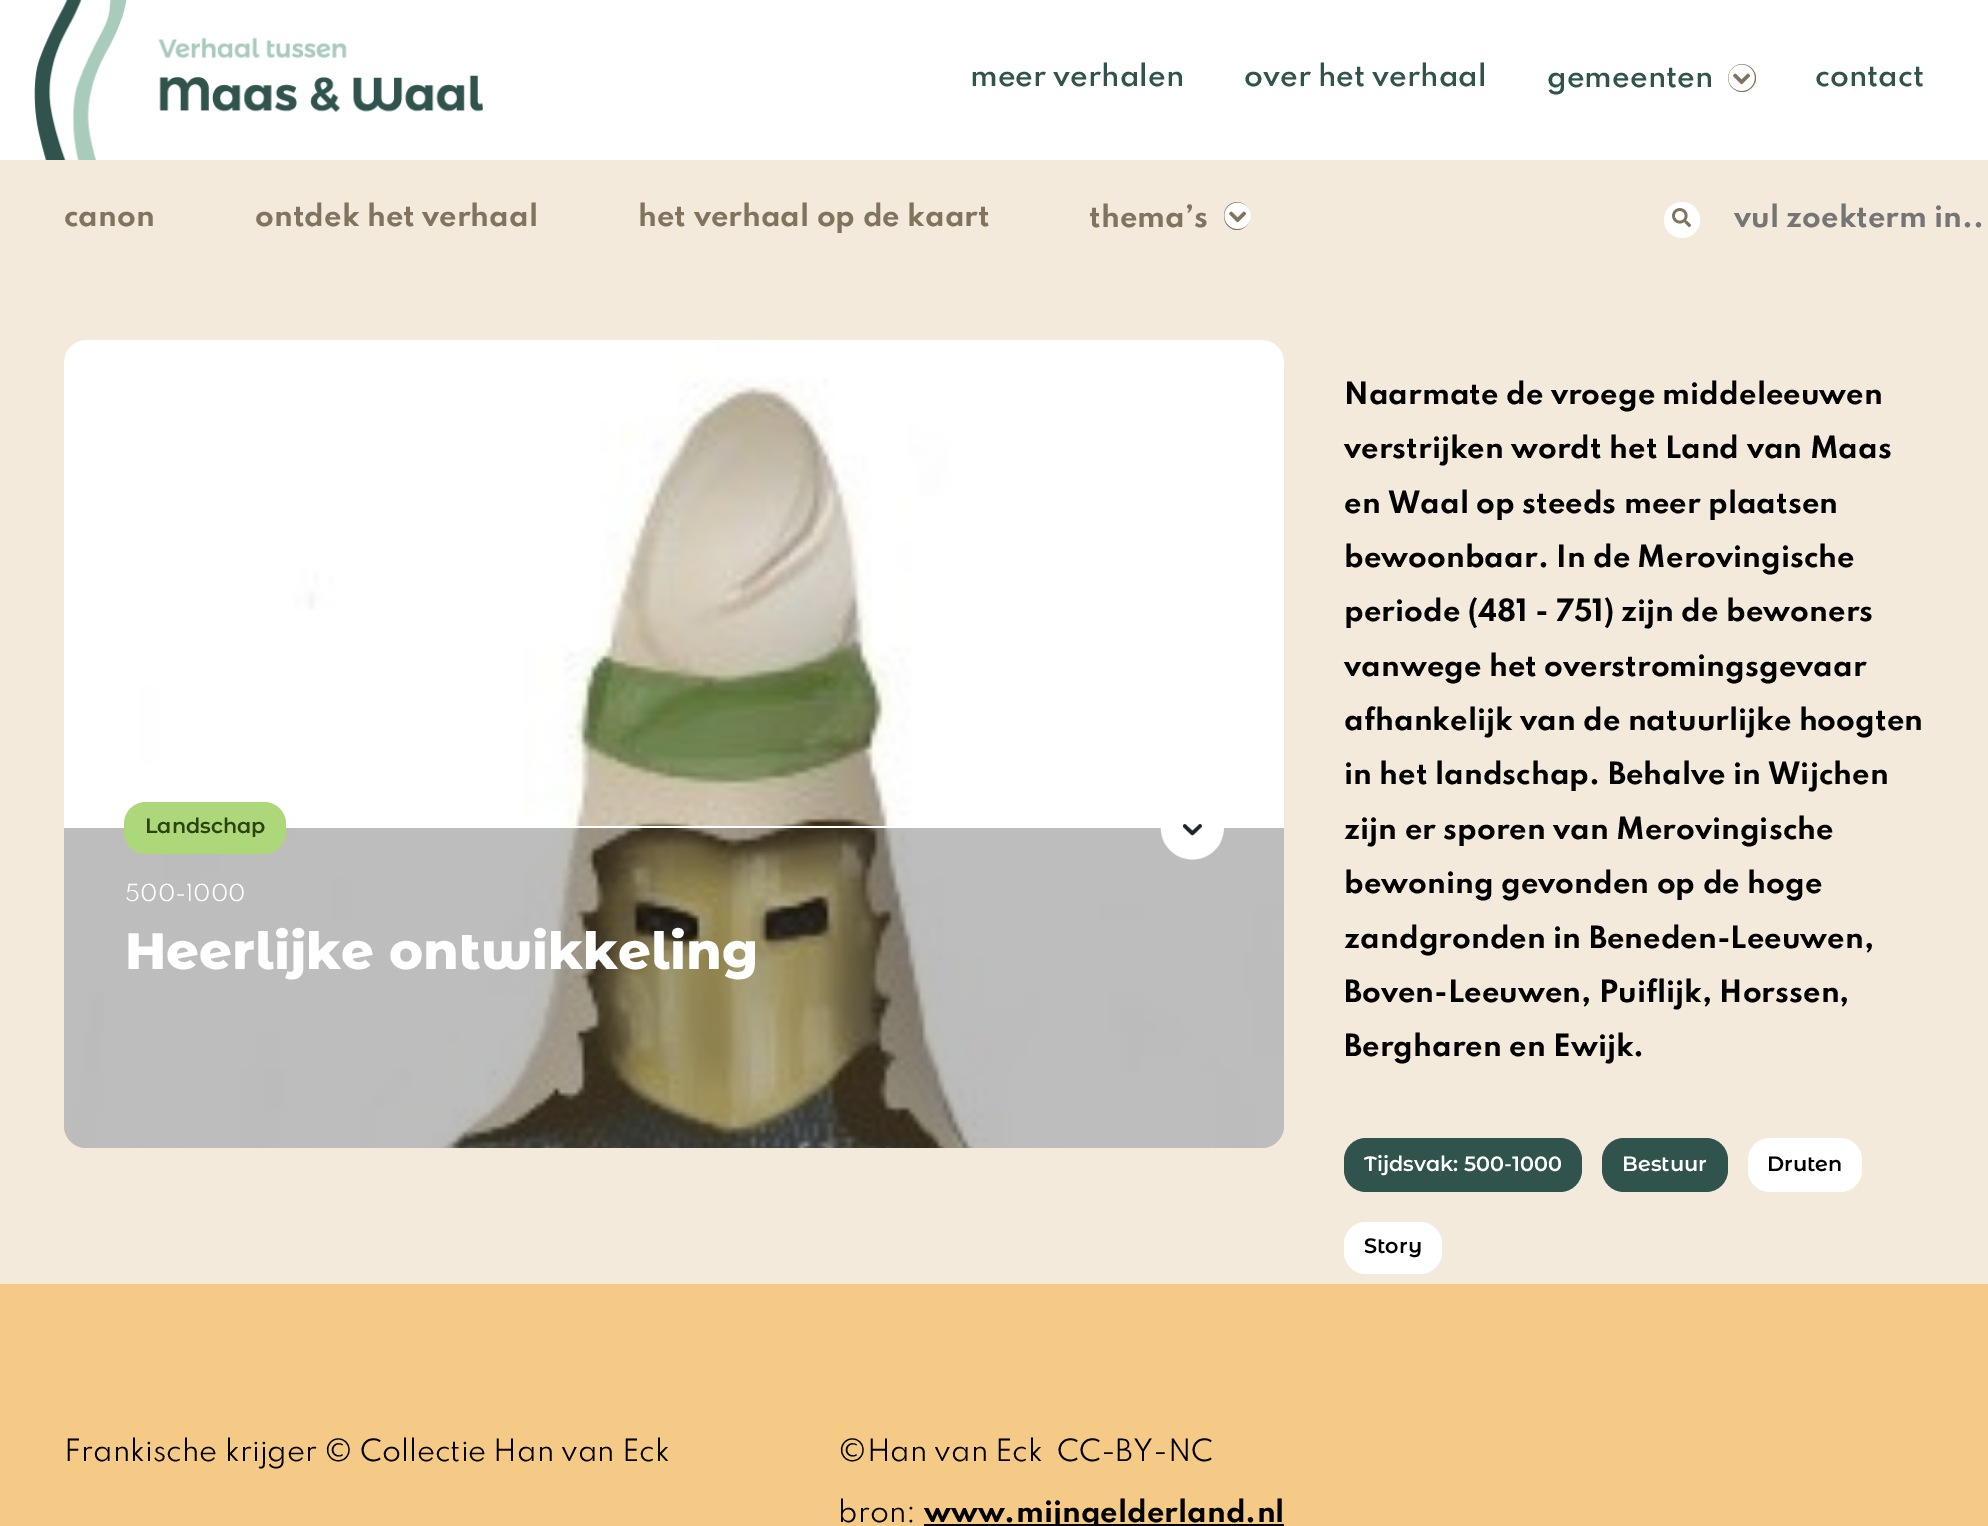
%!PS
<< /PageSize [1988 1526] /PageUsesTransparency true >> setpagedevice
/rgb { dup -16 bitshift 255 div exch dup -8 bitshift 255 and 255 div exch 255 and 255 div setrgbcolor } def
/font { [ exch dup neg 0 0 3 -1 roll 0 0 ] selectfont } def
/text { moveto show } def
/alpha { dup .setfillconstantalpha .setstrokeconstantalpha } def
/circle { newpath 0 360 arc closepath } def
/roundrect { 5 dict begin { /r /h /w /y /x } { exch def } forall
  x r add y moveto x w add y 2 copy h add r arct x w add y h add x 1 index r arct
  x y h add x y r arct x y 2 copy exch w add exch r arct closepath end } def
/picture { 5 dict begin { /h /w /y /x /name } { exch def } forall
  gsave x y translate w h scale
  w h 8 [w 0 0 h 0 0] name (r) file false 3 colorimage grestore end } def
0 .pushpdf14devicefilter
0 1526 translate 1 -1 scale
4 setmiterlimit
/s1 { /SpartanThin-SemiBold 27.2 font 16#30534D rgb } def
/s2 { /SpartanThin-Bold 27.2 font 16#81745E rgb } def
/s3 { /SpartanThin-Bold 27.2 font 16#757575 rgb } def
/s4 { /MontserratAlternates-SemiBold 20.75 font 16#2C4311 rgb } def
/s5 { /SpartanThin-Regular 20.75 font 16#FFFFFF rgb } def
/s6 { /MontserratAlternates-ExtraBold 51.25 font 16#FFFFFF rgb } def
/s7 { /SpartanThin-Bold 27.2 font 16#000000 rgb } def
/s8 { /MontserratAlternates-SemiBold 20.75 font 16#FFFFFF rgb } def
/s9 { /MontserratAlternates-SemiBold 20.75 font 16#000000 rgb } def
/s10 { /SpartanThin-Regular 27.2 font 16#000000 rgb } def
16#FFFFFF rgb
0 0 1988 1526 rectfill
(pic1.raw) 34 0 449 160 picture
s1
(meer verhalen) 970 86 text
(over het verhaal) 1244 86 text
16#81745E rgb
1742 78 14 circle fill
s1
(gemeenten) 1547 87 text
(pic2.raw) 1728 64 27 27 picture
(contact) 1815 86 text
16#F3EADB rgb
0 160 1988 1124 rectfill
s2
(canon) 64 226 text
(ontdek het verhaal) 255 226 text
(het verhaal op de kaart) 638 226 text
1224 202 26 28 13 roundrect fill
(thema’s) 1089 227 text
(pic3.raw) 1224 202 27 27 picture
16#FFFFFF rgb
1682 220 18 circle fill
(pic4.raw) 1672 208 20 20 picture
s3
(vul zoekterm in..) 1734 227 text
(pic5.raw) 64 340 1220 808 picture
0.3 alpha
16#242424 rgb
64 826 moveto 1284 826 lineto 1284 1126 lineto 1284 1138 1274 1148 1262 1148 curveto 86 1148 lineto 74 1148 64 1138 64 1126 curveto closepath fill
1 alpha
16#FFFFFF rgb
64 826 1220 2 rectfill
16#ACD879 rgb
124 802 162 52 22 roundrect fill
s4
(Landschap) 145 833 text
(pic6.raw) 1160 824 64 36 picture
s5
(500-1000) 125 901 text
s6
(Heerlijke ontwikkeling) 125 969 text
s7
(Naarmate de vroege middeleeuwen) 1344 404 text
(verstrijken wordt het Land van Maas) 1344 458 text
(en Waal op steeds meer plaatsen) 1344 513 text
(bewoonbaar. In de Merovingische) 1344 567 text
(periode \(481 - 751\) zijn de bewoners) 1344 621 text
(vanwege het overstromingsgevaar) 1344 676 text
(afhankelijk van de natuurlijke hoogten) 1344 730 text
(in het landschap. Behalve in Wijchen) 1344 784 text
(zijn er sporen van Merovingische) 1344 839 text
(bewoning gevonden op de hoge) 1344 893 text
(zandgronden in Beneden-Leeuwen,) 1344 948 text
(Boven-Leeuwen, Puiflijk, Horssen,) 1344 1002 text
(Bergharen en Ewijk.) 1344 1056 text
16#30534D rgb
1344 1138 238 54 22 roundrect fill
s8
(Tijdsvak: 500-1000) 1364 1171 text
16#30534D rgb
1602 1138 126 54 22 roundrect fill
s8
(Bestuur) 1622 1171 text
1748 1138 114 54 22 roundrect fill
s9
(Druten) 1767 1171 text
16#FFFFFF rgb
1344 1222 98 52 22 roundrect fill
s9
(Story) 1364 1253 text
16#F5CA86 rgb
0 1284 1988 242 rectfill
s10
(Frankische krijger © Collectie Han van Eck) 64 1461 text
(©Han van Eck) 838 1461 text
(CC-BY-NC) 1057 1461 text
(bron:) 838 1522 text
924 1524 360 2 rectfill
s7
(www.mijngelderland.nl) 924 1522 text
.poppdf14devicefilter showpage
